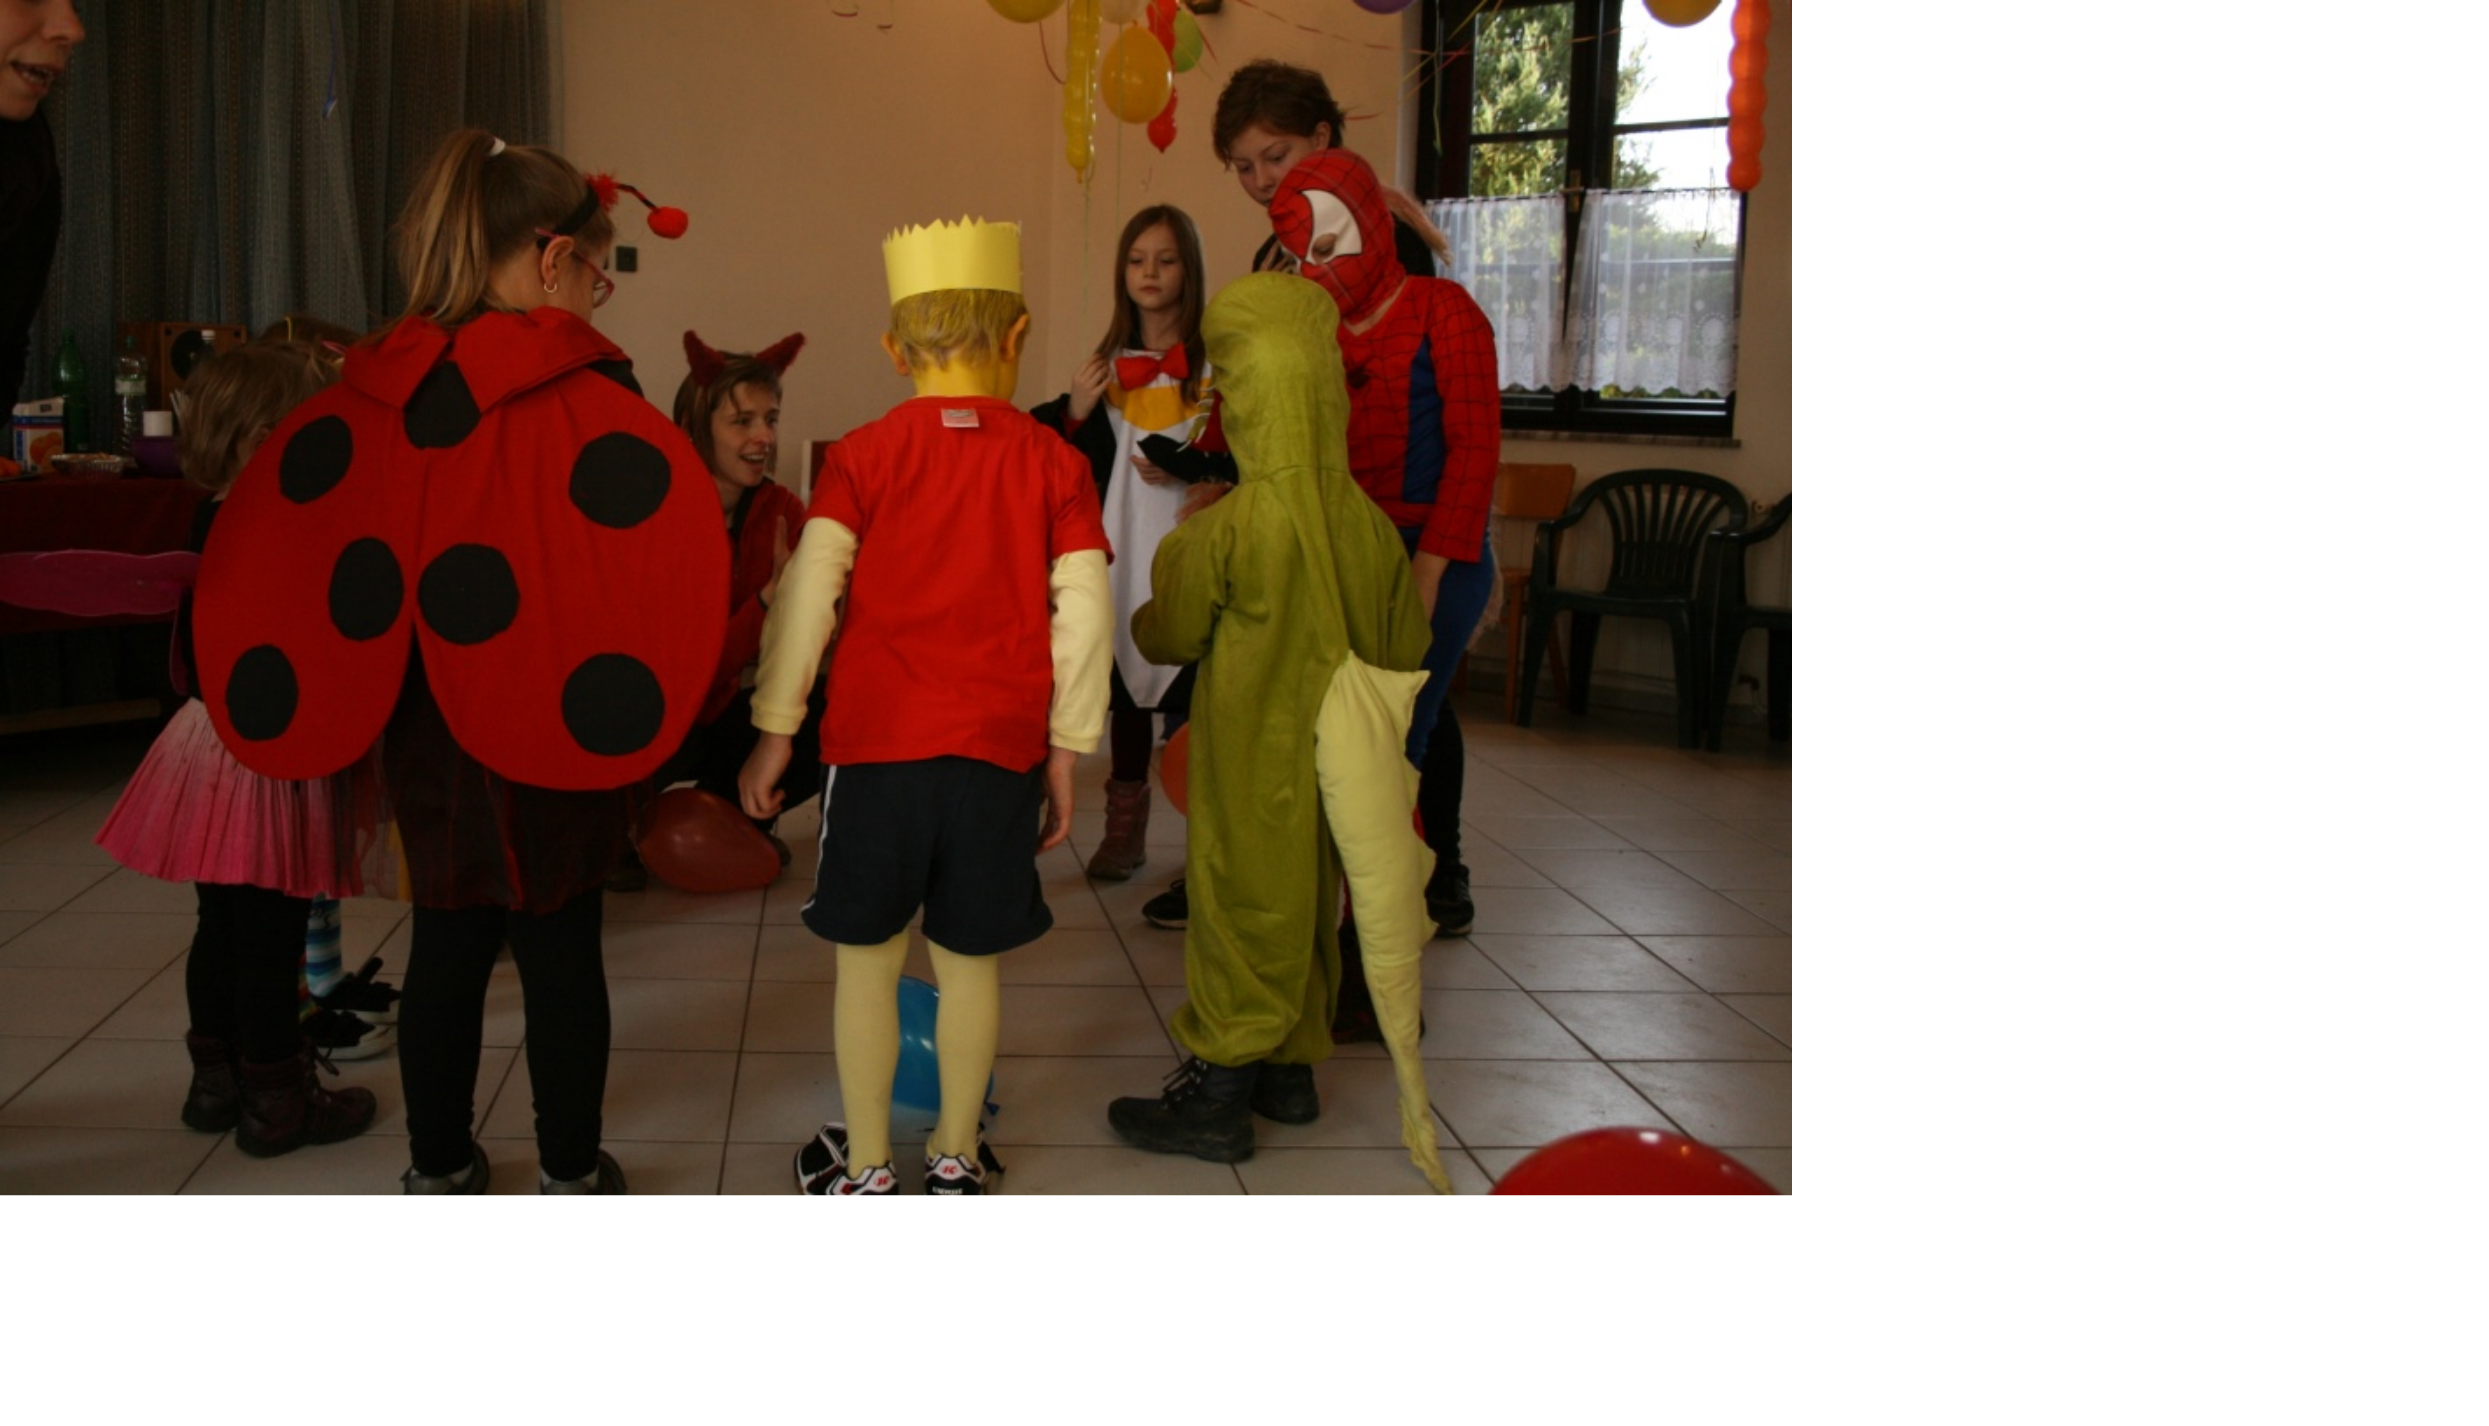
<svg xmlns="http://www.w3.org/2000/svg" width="2489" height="1426">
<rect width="100%" height="100%" fill="#fff"/>
<image x="0" y="0" width="1792" height="1196" href="media/1.png"/>
</svg>
